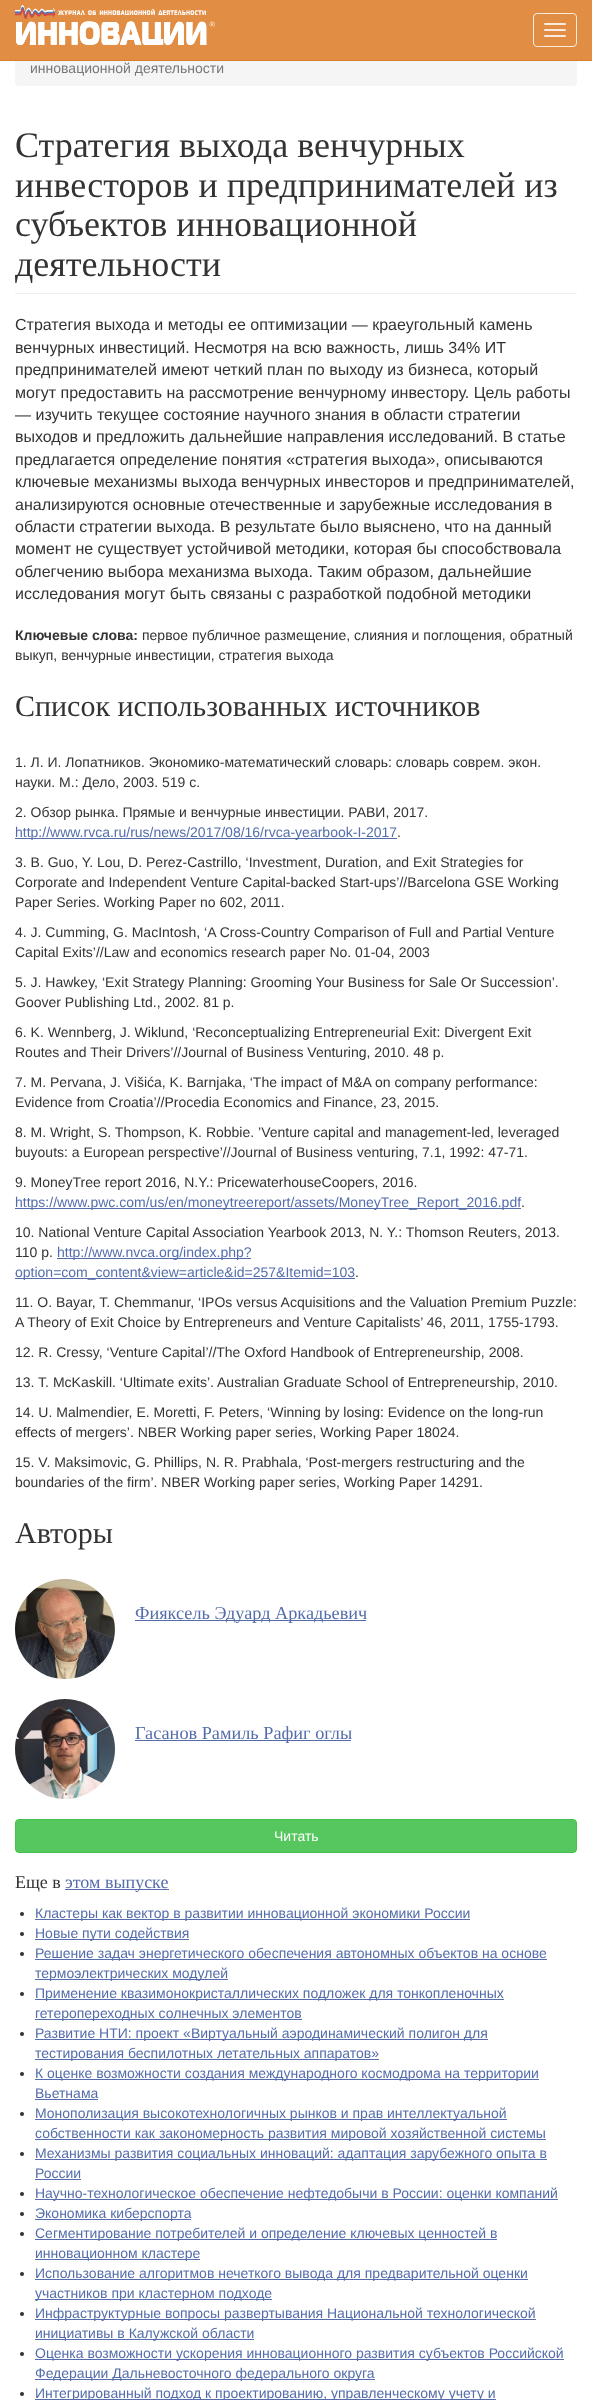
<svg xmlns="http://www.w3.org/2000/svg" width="592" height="2400">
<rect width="100%" height="100%" fill="#fff"/>
<rect x="15" y="10" width="562" height="76" rx="4" fill="#f5f5f5"/>
<rect width="592" height="60" fill="#e18d44"/>
<rect y="60" width="592" height="1" fill="#dc7c27"/>
<image x="15" y="5" width="200" height="40" href="media/1.png"/>
<rect x="533.5" y="13.5" width="43" height="33" rx="3.5" fill="none" stroke="#faebde"/>
<rect x="544" y="23" width="22" height="2" rx="1" fill="#faebde"/>
<rect x="544" y="29" width="22" height="2" rx="1" fill="#faebde"/>
<rect x="544" y="35" width="22" height="2" rx="1" fill="#faebde"/>
<text x="30" y="73" style="font-family:Liberation Sans;font-size:14px;fill:#777">инновационной деятельности</text>
<rect x="15" y="293" width="562" height="1" fill="#eee"/>
<text x="15" y="157" style="font-family:Liberation Serif;font-size:36px;fill:#333">Стратегия выхода венчурных</text>
<text x="15" y="197" style="font-family:Liberation Serif;font-size:36px;fill:#333">инвесторов и предпринимателей из</text>
<text x="15" y="236" style="font-family:Liberation Serif;font-size:36px;fill:#333">субъектов инновационной</text>
<text x="15" y="276" style="font-family:Liberation Serif;font-size:36px;fill:#333">деятельности</text>
<text x="15" y="330" style="font-family:Liberation Sans;font-size:16px;fill:#333">Стратегия выхода и методы ее оптимизации — краеугольный камень</text>
<text x="15" y="353" style="font-family:Liberation Sans;font-size:16px;fill:#333">венчурных инвестиций. Несмотря на всю важность, лишь 34% ИТ</text>
<text x="15" y="375" style="font-family:Liberation Sans;font-size:16px;fill:#333">предпринимателей имеют четкий план по выходу из бизнеса, который</text>
<text x="15" y="398" style="font-family:Liberation Sans;font-size:16px;fill:#333">могут предоставить на рассмотрение венчурному инвестору. Цель работы</text>
<text x="15" y="420" style="font-family:Liberation Sans;font-size:16px;fill:#333">— изучить текущее состояние научного знания в области стратегии</text>
<text x="15" y="442" style="font-family:Liberation Sans;font-size:16px;fill:#333">выходов и предложить дальнейшие направления исследований. В статье</text>
<text x="15" y="465" style="font-family:Liberation Sans;font-size:16px;fill:#333">предлагается определение понятия «стратегия выхода», описываются</text>
<text x="15" y="487" style="font-family:Liberation Sans;font-size:16px;fill:#333">ключевые механизмы выхода венчурных инвесторов и предпринимателей,</text>
<text x="15" y="510" style="font-family:Liberation Sans;font-size:16px;fill:#333">анализируются основные отечественные и зарубежные исследования в</text>
<text x="15" y="532" style="font-family:Liberation Sans;font-size:16px;fill:#333">области стратегии выхода. В результате было выяснено, что на данный</text>
<text x="15" y="554" style="font-family:Liberation Sans;font-size:16px;fill:#333">момент не существует устойчивой методики, которая бы способствовала</text>
<text x="15" y="577" style="font-family:Liberation Sans;font-size:16px;fill:#333">облегчению выбора механизма выхода. Таким образом, дальнейшие</text>
<text x="15" y="599" style="font-family:Liberation Sans;font-size:16px;fill:#333">исследования могут быть связаны с разработкой подобной методики</text>
<text x="15" y="640" style="font-family:Liberation Sans;font-size:14px;font-weight:bold;fill:#333">Ключевые слова:</text>
<text x="142" y="640" style="font-family:Liberation Sans;font-size:14px;fill:#333">первое публичное размещение, слияния и поглощения, обратный</text>
<text x="15" y="660" style="font-family:Liberation Sans;font-size:14px;fill:#333">выкуп, венчурные инвестиции, стратегия выхода</text>
<text x="15" y="716" style="font-family:Liberation Serif;font-size:30px;fill:#333">Список использованных источников</text>
<text x="15" y="767" style="font-family:Liberation Sans;font-size:14px;fill:#333">1. Л. И. Лопатников. Экономико-математический словарь: словарь соврем. экон.</text>
<text x="15" y="787" style="font-family:Liberation Sans;font-size:14px;fill:#333">науки. М.: Дело, 2003. 519 с.</text>
<text x="15" y="817" style="font-family:Liberation Sans;font-size:14px;fill:#333">2. Обзор рынка. Прямые и венчурные инвестиции. РАВИ, 2017.</text>
<rect x="15" y="838" width="382" height="1" fill="#546daa"/>
<text x="15" y="837" style="font-family:Liberation Sans;font-size:14px;fill:#546daa">http://www.rvca.ru/rus/news/2017/08/16/rvca-yearbook-I-2017</text>
<text x="397" y="837" style="font-family:Liberation Sans;font-size:14px;fill:#333">.</text>
<text x="15" y="867" style="font-family:Liberation Sans;font-size:14px;fill:#333">3. B. Guo, Y. Lou, D. Perez-Castrillo, ‘Investment, Duration, and Exit Strategies for</text>
<text x="15" y="887" style="font-family:Liberation Sans;font-size:14px;fill:#333">Corporate and Independent Venture Capital-backed Start-ups’//Barcelona GSE Working</text>
<text x="15" y="907" style="font-family:Liberation Sans;font-size:14px;fill:#333">Paper Series. Working Paper no 602, 2011.</text>
<text x="15" y="937" style="font-family:Liberation Sans;font-size:14px;fill:#333">4. J. Cumming, G. MacIntosh, ‘A Cross-Country Comparison of Full and Partial Venture</text>
<text x="15" y="957" style="font-family:Liberation Sans;font-size:14px;fill:#333">Capital Exits’//Law and economics research paper No. 01-04, 2003</text>
<text x="15" y="987" style="font-family:Liberation Sans;font-size:14px;fill:#333">5. J. Hawkey, ‘Exit Strategy Planning: Grooming Your Business for Sale Or Succession’.</text>
<text x="15" y="1007" style="font-family:Liberation Sans;font-size:14px;fill:#333">Goover Publishing Ltd., 2002. 81 p.</text>
<text x="15" y="1037" style="font-family:Liberation Sans;font-size:14px;fill:#333">6. K. Wennberg, J. Wiklund, ‘Reconceptualizing Entrepreneurial Exit: Divergent Exit</text>
<text x="15" y="1057" style="font-family:Liberation Sans;font-size:14px;fill:#333">Routes and Their Drivers’//Journal of Business Venturing, 2010. 48 p.</text>
<text x="15" y="1087" style="font-family:Liberation Sans;font-size:14px;fill:#333">7. M. Pervana, J. Višića, K. Barnjaka, ‘The impact of M&amp;A on company performance:</text>
<text x="15" y="1107" style="font-family:Liberation Sans;font-size:14px;fill:#333">Evidence from Croatia’//Procedia Economics and Finance, 23, 2015.</text>
<text x="15" y="1137" style="font-family:Liberation Sans;font-size:14px;fill:#333">8. M. Wright, S. Thompson, K. Robbie. ’Venture capital and management-led, leveraged</text>
<text x="15" y="1157" style="font-family:Liberation Sans;font-size:14px;fill:#333">buyouts: a European perspective’//Journal of Business venturing, 7.1, 1992: 47-71.</text>
<text x="15" y="1187" style="font-family:Liberation Sans;font-size:14px;fill:#333">9. MoneyTree report 2016, N.Y.: PricewaterhouseCoopers, 2016.</text>
<rect x="15" y="1208" width="506" height="1" fill="#546daa"/>
<text x="15" y="1207" style="font-family:Liberation Sans;font-size:14px;fill:#546daa">https://www.pwc.com/us/en/moneytreereport/assets/MoneyTree_Report_2016.pdf</text>
<text x="521" y="1207" style="font-family:Liberation Sans;font-size:14px;fill:#333">.</text>
<text x="15" y="1237" style="font-family:Liberation Sans;font-size:14px;fill:#333">10. National Venture Capital Association Yearbook 2013, N. Y.: Thomson Reuters, 2013.</text>
<text x="15" y="1257" style="font-family:Liberation Sans;font-size:14px;fill:#333">110 p.</text>
<rect x="57" y="1258" width="194" height="1" fill="#546daa"/>
<text x="57" y="1257" style="font-family:Liberation Sans;font-size:14px;fill:#546daa">http://www.nvca.org/index.php?</text>
<rect x="15" y="1278" width="340" height="1" fill="#546daa"/>
<text x="15" y="1277" style="font-family:Liberation Sans;font-size:14px;fill:#546daa">option=com_content&amp;view=article&amp;id=257&amp;Itemid=103</text>
<text x="355" y="1277" style="font-family:Liberation Sans;font-size:14px;fill:#333">.</text>
<text x="15" y="1307" style="font-family:Liberation Sans;font-size:14px;fill:#333">11. O. Bayar, T. Chemmanur, ‘IPOs versus Acquisitions and the Valuation Premium Puzzle:</text>
<text x="15" y="1327" style="font-family:Liberation Sans;font-size:14px;fill:#333">A Theory of Exit Choice by Entrepreneurs and Venture Capitalists’ 46, 2011, 1755-1793.</text>
<text x="15" y="1357" style="font-family:Liberation Sans;font-size:14px;fill:#333">12. R. Cressy, ‘Venture Capital’//The Oxford Handbook of Entrepreneurship, 2008.</text>
<text x="15" y="1387" style="font-family:Liberation Sans;font-size:14px;fill:#333">13. T. McKaskill. ‘Ultimate exits’. Australian Graduate School of Entrepreneurship, 2010.</text>
<text x="15" y="1417" style="font-family:Liberation Sans;font-size:14px;fill:#333">14. U. Malmendier, E. Moretti, F. Peters, ‘Winning by losing: Evidence on the long-run</text>
<text x="15" y="1437" style="font-family:Liberation Sans;font-size:14px;fill:#333">effects of mergers’. NBER Working paper series, Working Paper 18024.</text>
<text x="15" y="1467" style="font-family:Liberation Sans;font-size:14px;fill:#333">15. V. Maksimovic, G. Phillips, N. R. Prabhala, ‘Post-mergers restructuring and the</text>
<text x="15" y="1487" style="font-family:Liberation Sans;font-size:14px;fill:#333">boundaries of the firm’. NBER Working paper series, Working Paper 14291.</text>
<text x="15" y="1543" style="font-family:Liberation Serif;font-size:30px;fill:#333">Авторы</text>
<image x="15" y="1579" width="100" height="100" href="media/2.png"/>
<rect x="135" y="1620" width="231" height="1" fill="#546daa"/>
<text x="135" y="1619" style="font-family:Liberation Serif;font-size:18.25px;fill:#546daa">Фияксель Эдуард Аркадьевич</text>
<image x="15" y="1699" width="100" height="100" href="media/3.png"/>
<rect x="135" y="1740" width="216" height="1" fill="#546daa"/>
<text x="135" y="1739" style="font-family:Liberation Serif;font-size:18.25px;fill:#546daa">Гасанов Рамиль Рафиг оглы</text>
<rect x="15.5" y="1819.5" width="561" height="33" rx="3.5" fill="#56c75e" stroke="#43c14c"/>
<text x="274" y="1841" style="font-family:Liberation Sans;font-size:14px;fill:#fff">Читать</text>
<text x="15" y="1888" style="font-family:Liberation Serif;font-size:18px;fill:#333">Еще в</text>
<rect x="65" y="1889" width="104" height="1" fill="#546daa"/>
<text x="65" y="1888" style="font-family:Liberation Serif;font-size:18px;fill:#546daa">этом выпуске</text>
<circle cx="22" cy="1914" r="2" fill="#333"/>
<rect x="35" y="1919" width="435" height="1" fill="#546daa"/>
<text x="35" y="1918" style="font-family:Liberation Sans;font-size:14px;fill:#546daa">Кластеры как вектор в развитии инновационной экономики России</text>
<circle cx="22" cy="1934" r="2" fill="#333"/>
<rect x="35" y="1939" width="154" height="1" fill="#546daa"/>
<text x="35" y="1938" style="font-family:Liberation Sans;font-size:14px;fill:#546daa">Новые пути содействия</text>
<circle cx="22" cy="1954" r="2" fill="#333"/>
<rect x="35" y="1959" width="512" height="1" fill="#546daa"/>
<text x="35" y="1958" style="font-family:Liberation Sans;font-size:14px;fill:#546daa">Решение задач энергетического обеспечения автономных объектов на основе</text>
<rect x="35" y="1979" width="193" height="1" fill="#546daa"/>
<text x="35" y="1978" style="font-family:Liberation Sans;font-size:14px;fill:#546daa">термоэлектрических модулей</text>
<circle cx="22" cy="1994" r="2" fill="#333"/>
<rect x="35" y="1999" width="469" height="1" fill="#546daa"/>
<text x="35" y="1998" style="font-family:Liberation Sans;font-size:14px;fill:#546daa">Применение квазимонокристаллических подложек для тонкопленочных</text>
<rect x="35" y="2019" width="267" height="1" fill="#546daa"/>
<text x="35" y="2018" style="font-family:Liberation Sans;font-size:14px;fill:#546daa">гетеропереходных солнечных элементов</text>
<circle cx="22" cy="2034" r="2" fill="#333"/>
<rect x="35" y="2039" width="453" height="1" fill="#546daa"/>
<text x="35" y="2038" style="font-family:Liberation Sans;font-size:14px;fill:#546daa">Развитие НТИ: проект «Виртуальный аэродинамический полигон для</text>
<rect x="35" y="2059" width="344" height="1" fill="#546daa"/>
<text x="35" y="2058" style="font-family:Liberation Sans;font-size:14px;fill:#546daa">тестирования беспилотных летательных аппаратов»</text>
<circle cx="22" cy="2074" r="2" fill="#333"/>
<rect x="35" y="2079" width="504" height="1" fill="#546daa"/>
<text x="35" y="2078" style="font-family:Liberation Sans;font-size:14px;fill:#546daa">К оценке возможности создания международного космодрома на территории</text>
<text x="35" y="2098" style="font-family:Liberation Sans;font-size:14px;fill:#546daa">Вьетнама</text>
<rect x="35" y="2099" width="63" height="1" fill="#546daa"/>
<circle cx="22" cy="2114" r="2" fill="#333"/>
<rect x="35" y="2119" width="472" height="1" fill="#546daa"/>
<text x="35" y="2118" style="font-family:Liberation Sans;font-size:14px;fill:#546daa">Монополизация высокотехнологичных рынков и прав интеллектуальной</text>
<rect x="35" y="2139" width="511" height="1" fill="#546daa"/>
<text x="35" y="2138" style="font-family:Liberation Sans;font-size:14px;fill:#546daa">собственности как закономерность развития мировой хозяйственной системы</text>
<circle cx="22" cy="2154" r="2" fill="#333"/>
<rect x="35" y="2159" width="512" height="1" fill="#546daa"/>
<text x="35" y="2158" style="font-family:Liberation Sans;font-size:14px;fill:#546daa">Механизмы развития социальных инноваций: адаптация зарубежного опыта в</text>
<text x="35" y="2178" style="font-family:Liberation Sans;font-size:14px;fill:#546daa">России</text>
<rect x="35" y="2179" width="46" height="1" fill="#546daa"/>
<circle cx="22" cy="2194" r="2" fill="#333"/>
<rect x="35" y="2199" width="523" height="1" fill="#546daa"/>
<text x="35" y="2198" style="font-family:Liberation Sans;font-size:14px;fill:#546daa">Научно-технологическое обеспечение нефтедобычи в России: оценки компаний</text>
<circle cx="22" cy="2214" r="2" fill="#333"/>
<rect x="35" y="2219" width="156" height="1" fill="#546daa"/>
<text x="35" y="2218" style="font-family:Liberation Sans;font-size:14px;fill:#546daa">Экономика киберспорта</text>
<circle cx="22" cy="2234" r="2" fill="#333"/>
<rect x="35" y="2239" width="462" height="1" fill="#546daa"/>
<text x="35" y="2238" style="font-family:Liberation Sans;font-size:14px;fill:#546daa">Сегментирование потребителей и определение ключевых ценностей в</text>
<rect x="35" y="2259" width="165" height="1" fill="#546daa"/>
<text x="35" y="2258" style="font-family:Liberation Sans;font-size:14px;fill:#546daa">инновационном кластере</text>
<circle cx="22" cy="2274" r="2" fill="#333"/>
<rect x="35" y="2279" width="493" height="1" fill="#546daa"/>
<text x="35" y="2278" style="font-family:Liberation Sans;font-size:14px;fill:#546daa">Использование алгоритмов нечеткого вывода для предварительной оценки</text>
<rect x="35" y="2299" width="237" height="1" fill="#546daa"/>
<text x="35" y="2298" style="font-family:Liberation Sans;font-size:14px;fill:#546daa">участников при кластерном подходе</text>
<circle cx="22" cy="2314" r="2" fill="#333"/>
<rect x="35" y="2319" width="501" height="1" fill="#546daa"/>
<text x="35" y="2318" style="font-family:Liberation Sans;font-size:14px;fill:#546daa">Инфраструктурные вопросы развертывания Национальной технологической</text>
<rect x="35" y="2339" width="219" height="1" fill="#546daa"/>
<text x="35" y="2338" style="font-family:Liberation Sans;font-size:14px;fill:#546daa">инициативы в Калужской области</text>
<circle cx="22" cy="2354" r="2" fill="#333"/>
<rect x="35" y="2359" width="529" height="1" fill="#546daa"/>
<text x="35" y="2358" style="font-family:Liberation Sans;font-size:14px;fill:#546daa">Оценка возможности ускорения инновационного развития субъектов Российской</text>
<rect x="35" y="2379" width="340" height="1" fill="#546daa"/>
<text x="35" y="2378" style="font-family:Liberation Sans;font-size:14px;fill:#546daa">Федерации Дальневосточного федерального округа</text>
<circle cx="22" cy="2394" r="2" fill="#333"/>
<rect x="35" y="2399" width="461" height="1" fill="#546daa"/>
<text x="35" y="2398" style="font-family:Liberation Sans;font-size:14px;fill:#546daa">Интегрированный подход к проектированию, управленческому учету и</text>
</svg>
